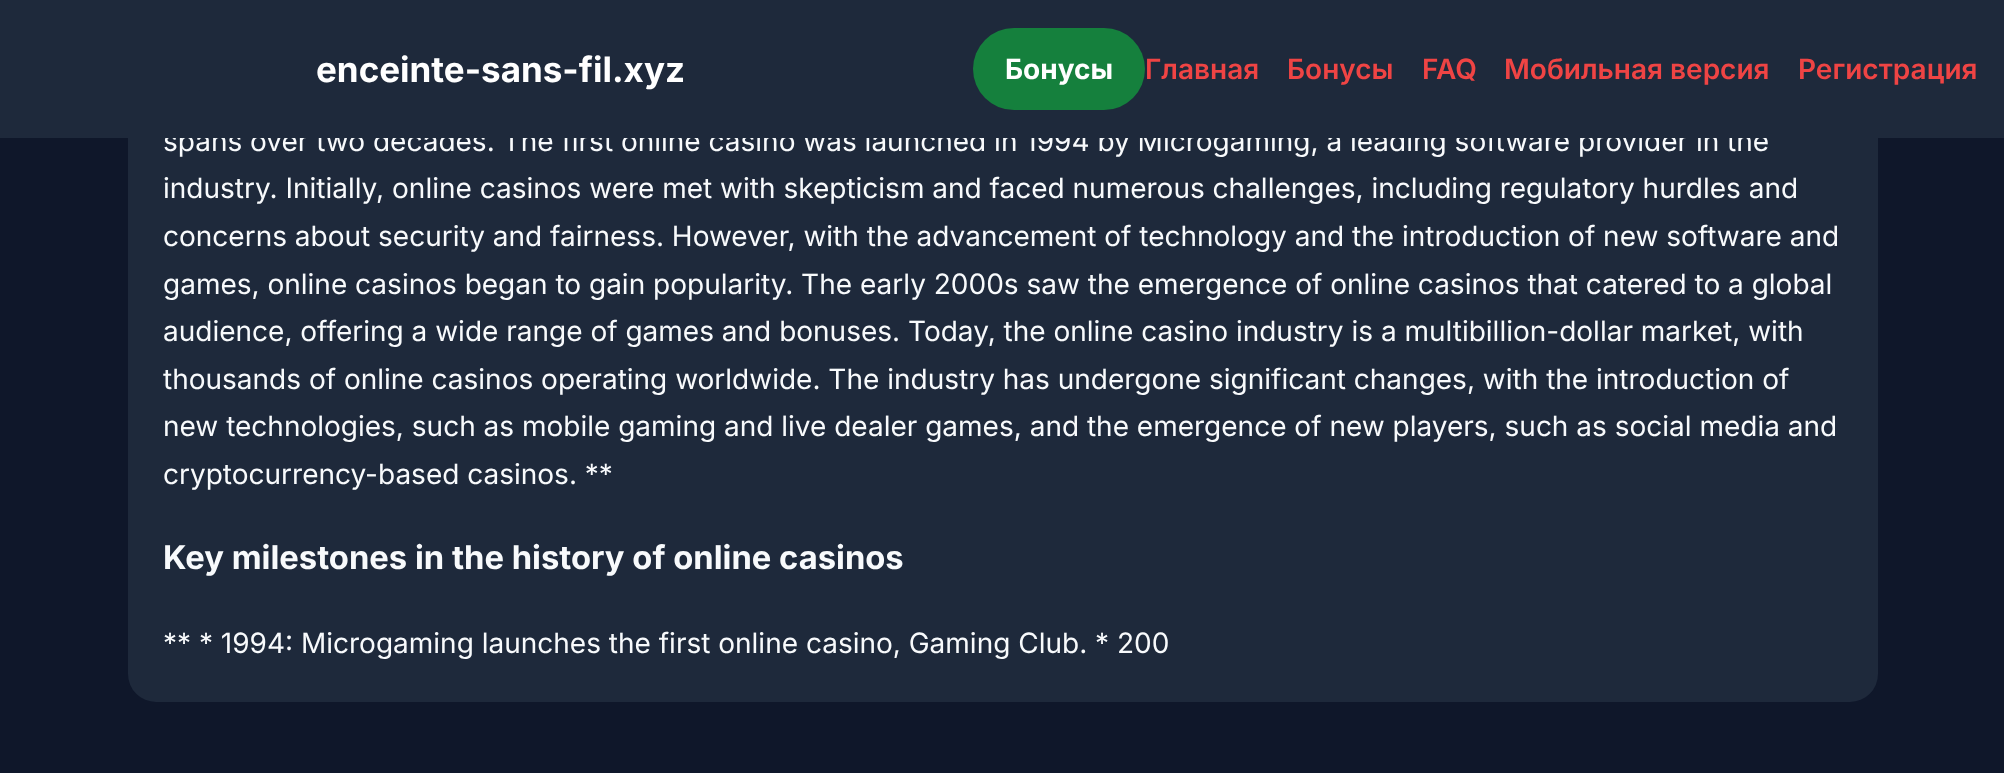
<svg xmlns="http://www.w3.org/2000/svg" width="2004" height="773">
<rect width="100%" height="100%" fill="#0f172a"/>
<rect x="128" y="-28" width="1750" height="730" rx="28" fill="#1e293b"/>
<text x="163" y="151" style="font-family:Inter;font-size:28px;fill:#f8fafc">spans over two decades. The first online casino was launched in 1994 by Microgaming, a leading software provider in the</text>
<rect width="2004" height="138" fill="#1e293b"/>
<text x="316" y="82" style="font-family:Inter;font-size:35px;font-weight:bold;fill:#fff">enceinte-sans-fil.xyz</text>
<rect x="973" y="28" width="172" height="82" rx="41" fill="#15803d"/>
<text x="1005" y="79" style="font-family:Inter;font-size:28px;font-weight:bold;fill:#fff">Бонусы</text>
<text x="1145" y="79" style="font-family:Inter;font-size:28px;font-weight:600;fill:#ef4444">Главная</text>
<text x="1287" y="79" style="font-family:Inter;font-size:28px;font-weight:600;fill:#ef4444">Бонусы</text>
<text x="1422" y="79" style="font-family:Inter;font-size:28px;font-weight:600;fill:#ef4444">FAQ</text>
<text x="1504" y="79" style="font-family:Inter;font-size:28px;font-weight:600;fill:#ef4444">Мобильная версия</text>
<text x="1798" y="79" style="font-family:Inter;font-size:28px;font-weight:600;fill:#ef4444">Регистрация</text>
<text x="163" y="198" style="font-family:Inter;font-size:28px;fill:#f8fafc">industry. Initially, online casinos were met with skepticism and faced numerous challenges, including regulatory hurdles and</text>
<text x="163" y="246" style="font-family:Inter;font-size:28px;fill:#f8fafc">concerns about security and fairness. However, with the advancement of technology and the introduction of new software and</text>
<text x="163" y="294" style="font-family:Inter;font-size:28px;fill:#f8fafc">games, online casinos began to gain popularity. The early 2000s saw the emergence of online casinos that catered to a global</text>
<text x="163" y="341" style="font-family:Inter;font-size:28px;fill:#f8fafc">audience, offering a wide range of games and bonuses. Today, the online casino industry is a multibillion-dollar market, with</text>
<text x="163" y="389" style="font-family:Inter;font-size:28px;fill:#f8fafc">thousands of online casinos operating worldwide. The industry has undergone significant changes, with the introduction of</text>
<text x="163" y="436" style="font-family:Inter;font-size:28px;fill:#f8fafc">new technologies, such as mobile gaming and live dealer games, and the emergence of new players, such as social media and</text>
<text x="163" y="484" style="font-family:Inter;font-size:28px;fill:#f8fafc">cryptocurrency-based casinos. **</text>
<text x="163" y="569" style="font-family:Inter;font-size:32.75px;font-weight:bold;fill:#f8fafc">Key milestones in the history of online casinos</text>
<text x="163" y="653" style="font-family:Inter;font-size:28px;fill:#f8fafc">** * 1994: Microgaming launches the first online casino, Gaming Club. * 200</text>
</svg>
